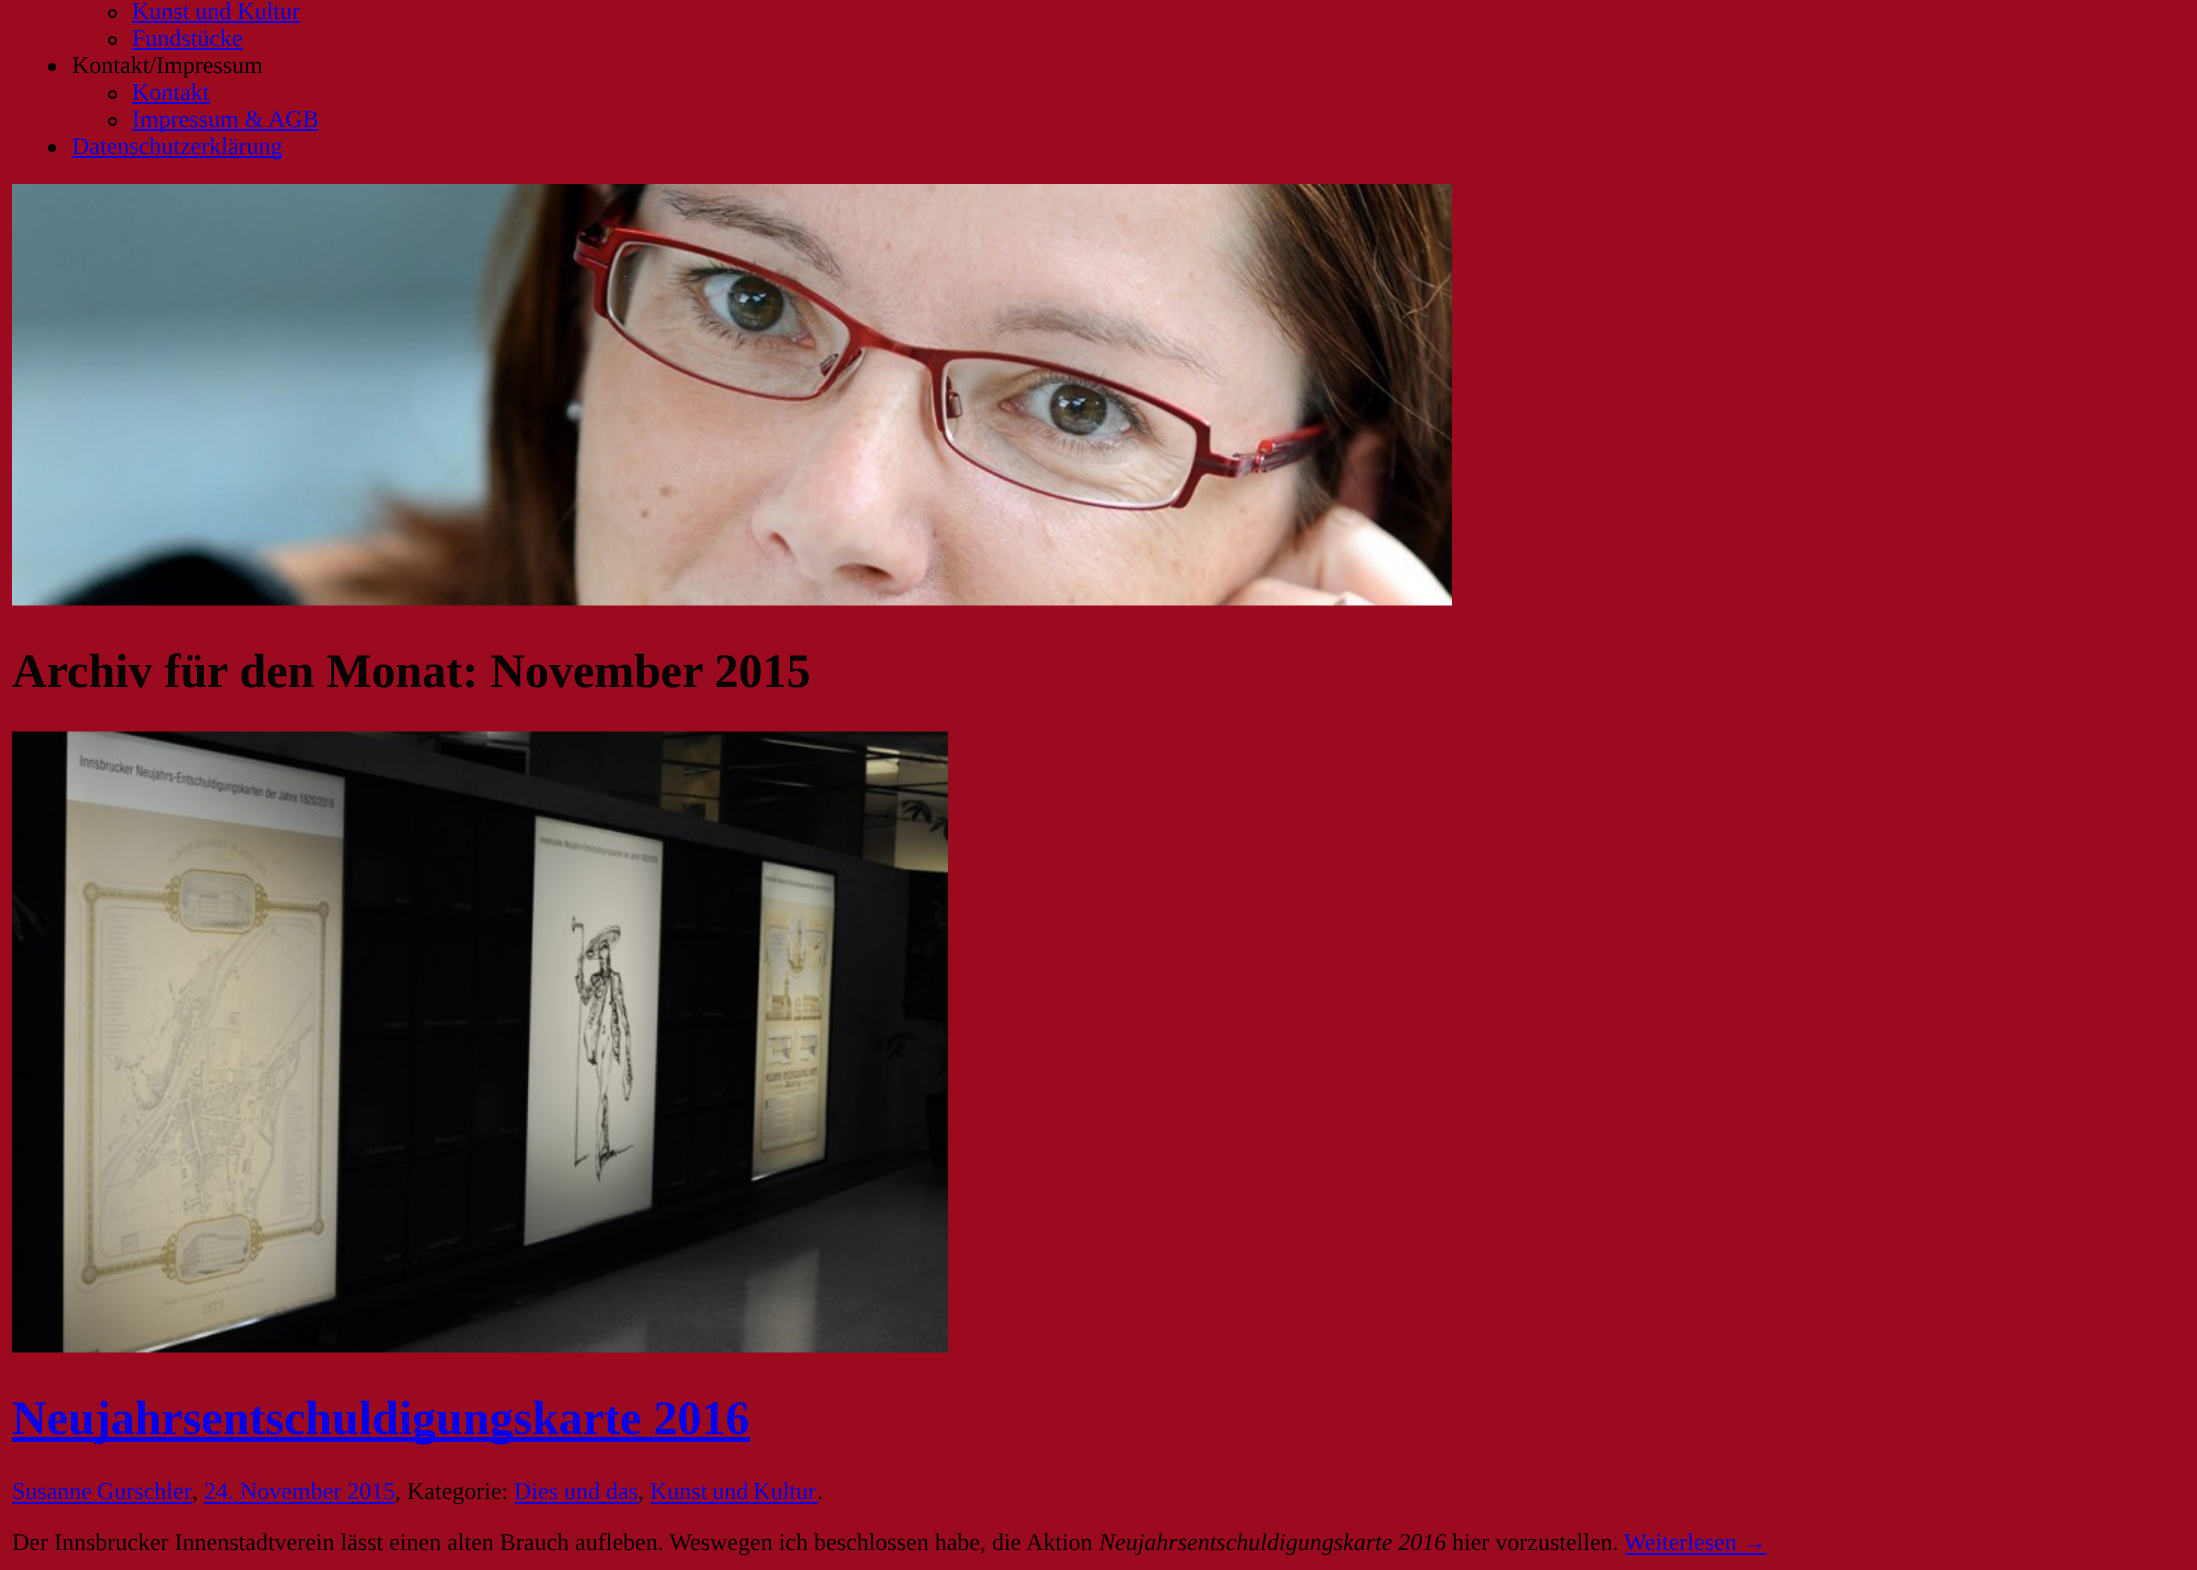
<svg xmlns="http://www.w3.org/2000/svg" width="2197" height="1570">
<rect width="100%" height="100%" fill="#9b0a1e"/>
<circle cx="112.5" cy="13.5" r="3.5" fill="none" stroke="#000" stroke-width="2"/>
<text x="132" y="19" style="font-family:Liberation Serif;font-size:24px;fill:#00e">Kunst und Kultur</text>
<rect x="132" y="21" width="168" height="2" fill="#00e"/>
<circle cx="112.5" cy="40.5" r="3.5" fill="none" stroke="#000" stroke-width="2"/>
<text x="132" y="46" style="font-family:Liberation Serif;font-size:24px;fill:#00e">Fundstücke</text>
<rect x="132" y="48" width="111" height="2" fill="#00e"/>
<circle cx="52" cy="67" r="4" fill="#000"/>
<text x="72" y="73" style="font-family:Liberation Serif;font-size:24px;fill:#000">Kontakt/Impressum</text>
<circle cx="112.5" cy="94.5" r="3.5" fill="none" stroke="#000" stroke-width="2"/>
<text x="132" y="100" style="font-family:Liberation Serif;font-size:24px;fill:#00e">Kontakt</text>
<rect x="132" y="102" width="78" height="2" fill="#00e"/>
<circle cx="112.5" cy="121.5" r="3.5" fill="none" stroke="#000" stroke-width="2"/>
<rect x="132" y="129" width="186" height="2" fill="#00e"/>
<text x="132" y="127" style="font-family:Liberation Serif;font-size:24px;fill:#00e">Impressum &amp; AGB</text>
<circle cx="52" cy="148" r="4" fill="#000"/>
<rect x="72" y="156" width="210" height="2" fill="#00e"/>
<text x="72" y="154" style="font-family:Liberation Serif;font-size:24px;fill:#00e">Datenschutzerklärung</text>
<image x="12" y="184" width="1440" height="422" href="media/1.png"/>
<text x="12" y="687" style="font-family:Liberation Serif;font-size:48px;font-weight:bold;fill:#000">Archiv für den Monat: November 2015</text>
<image x="12" y="731" width="936" height="622" href="media/2.png"/>
<rect x="12" y="1437" width="738" height="5" fill="#00e"/>
<text x="12" y="1434" style="font-family:Liberation Serif;font-size:48px;font-weight:bold;fill:#00e">Neujahrsentschuldigungskarte 2016</text>
<text x="12" y="1499" word-spacing="-1" style="font-family:Liberation Serif;font-size:24px;fill:#00e">Susanne Gurschler</text>
<rect x="12" y="1502" width="180" height="2" fill="#00e"/>
<text x="192" y="1499" style="font-family:Liberation Serif;font-size:24px;fill:#000">,</text>
<text x="204" y="1499" style="font-family:Liberation Serif;font-size:24px;fill:#00e">24. November 2015</text>
<rect x="204" y="1502" width="191" height="2" fill="#00e"/>
<text x="395" y="1499" style="font-family:Liberation Serif;font-size:24px;fill:#000">, Kategorie:</text>
<text x="514" y="1499" style="font-family:Liberation Serif;font-size:24px;fill:#00e">Dies und das</text>
<rect x="515" y="1502" width="124" height="2" fill="#00e"/>
<text x="638" y="1499" style="font-family:Liberation Serif;font-size:24px;fill:#000">,</text>
<text x="650" y="1499" word-spacing="-1" style="font-family:Liberation Serif;font-size:24px;fill:#00e">Kunst und Kultur</text>
<rect x="651" y="1502" width="167" height="2" fill="#00e"/>
<text x="817" y="1499" style="font-family:Liberation Serif;font-size:24px;fill:#000">.</text>
<text x="12" y="1550" style="font-family:Liberation Serif;font-size:24px;fill:#000">Der Innsbrucker Innenstadtverein lässt einen alten Brauch aufleben. Weswegen ich beschlossen habe, die Aktion</text>
<text x="1099" y="1550" style="font-family:Liberation Serif;font-size:24px;font-style:italic;fill:#000">Neujahrsentschuldigungskarte 2016</text>
<text x="1452" y="1550" style="font-family:Liberation Serif;font-size:24px;fill:#000">hier vorzustellen.</text>
<text x="1624" y="1550" style="font-family:Liberation Serif;font-size:24px;fill:#00e">Weiterlesen →</text>
<rect x="1625" y="1553" width="142" height="2" fill="#00e"/>
</svg>
